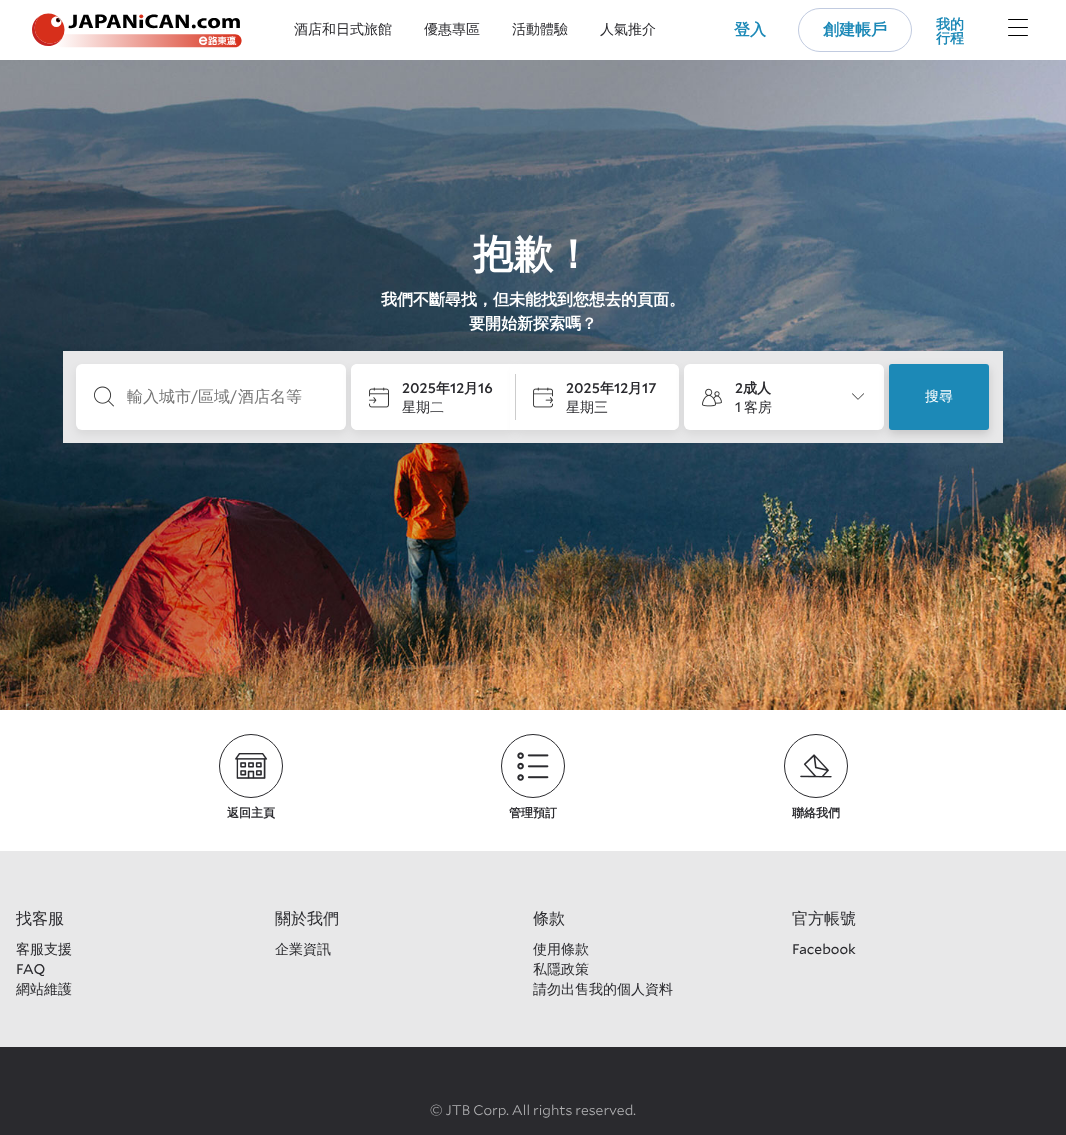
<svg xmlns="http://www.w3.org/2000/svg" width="1066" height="1135">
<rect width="100%" height="100%" fill="#fff"/>
<image x="32" y="13" width="210" height="35" href="media/1.png"/>
<text x="294" y="34" style="font-family:WenQuanYi Zen Hei;font-size:14px;font-weight:500;fill:#2a2a2e">酒店和日式旅館</text>
<text x="424" y="34" style="font-family:WenQuanYi Zen Hei;font-size:14px;font-weight:500;fill:#2a2a2e">優惠專區</text>
<text x="512" y="34" style="font-family:WenQuanYi Zen Hei;font-size:14px;font-weight:500;fill:#2a2a2e">活動體驗</text>
<text x="600" y="34" style="font-family:WenQuanYi Zen Hei;font-size:14px;font-weight:500;fill:#2a2a2e">人氣推介</text>
<text x="734" y="35" style="font-family:WenQuanYi Zen Hei;font-size:16px;font-weight:bold;fill:#1c89b7">登入</text>
<rect x="798.5" y="8.5" width="113" height="43" rx="21.5" fill="none" stroke="#c1cbe0"/>
<text x="823" y="35" style="font-family:WenQuanYi Zen Hei;font-size:16px;font-weight:bold;fill:#1c89b7">創建帳戶</text>
<text x="936" y="29" style="font-family:WenQuanYi Zen Hei;font-size:14px;font-weight:bold;fill:#1c89b7">我的</text>
<text x="936" y="43" style="font-family:WenQuanYi Zen Hei;font-size:14px;font-weight:bold;fill:#1c89b7">行程</text>
<image x="1008" y="19" width="20" height="17" href="media/2.png"/>
<image x="0" y="60" width="1066" height="650" href="media/3.png"/>
<text x="473" y="268" style="font-family:WenQuanYi Zen Hei;font-size:40px;font-weight:bold;fill:#fff">抱歉！</text>
<text x="381" y="305" style="font-family:WenQuanYi Zen Hei;font-size:16px;font-weight:bold;fill:#fff">我們不斷尋找，但未能找到您想去的頁面。</text>
<text x="469" y="329" style="font-family:WenQuanYi Zen Hei;font-size:16px;font-weight:bold;fill:#fff">要開始新探索嗎？</text>
<rect x="63" y="351" width="940" height="92" fill="#e8e8e9"/>
<rect x="76" y="368" width="270" height="66" rx="6" fill="#00000012" filter="blur(5px)"/>
<rect x="76" y="364" width="270" height="66" rx="6" fill="#fff"/>
<image x="94" y="386" width="20" height="21" href="media/4.png"/>
<text x="127" y="402" style="font-family:WenQuanYi Zen Hei;font-size:16px;font-weight:500;fill:#757575">輸入城市</text>
<text x="191" y="402" style="font-family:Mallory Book;font-size:16px;fill:#757575">/</text>
<text x="198" y="402" style="font-family:WenQuanYi Zen Hei;font-size:16px;font-weight:500;fill:#757575">區域</text>
<text x="230" y="402" style="font-family:Mallory Book;font-size:16px;fill:#757575">/</text>
<text x="238" y="402" style="font-family:WenQuanYi Zen Hei;font-size:16px;font-weight:500;fill:#757575">酒店名等</text>
<rect x="351" y="368" width="164" height="66" rx="6" fill="#00000012" filter="blur(5px)"/>
<path d="M357 364h158v66h-158c-3.5 0-6-2.5-6-6v-54c0-3.5 2.5-6 6-6z" fill="#fff"/>
<image x="369" y="387" width="20" height="21" href="media/5.png"/>
<text x="402" y="393" style="font-family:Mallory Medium;font-size:14px;font-weight:500;fill:#2a2a2e">2025</text>
<text x="436" y="393" style="font-family:WenQuanYi Zen Hei;font-size:14px;font-weight:bold;fill:#2a2a2e">年</text>
<text x="450" y="393" style="font-family:Mallory Medium;font-size:14px;font-weight:500;fill:#2a2a2e">12</text>
<text x="464" y="393" style="font-family:WenQuanYi Zen Hei;font-size:14px;font-weight:bold;fill:#2a2a2e">月</text>
<text x="478" y="393" style="font-family:Mallory Medium;font-size:14px;font-weight:500;fill:#2a2a2e">16</text>
<text x="402" y="412" style="font-family:WenQuanYi Zen Hei;font-size:14px;font-weight:500;fill:#2a2a2e">星期二</text>
<rect x="515" y="368" width="164" height="66" rx="6" fill="#00000012" filter="blur(5px)"/>
<path d="M515 364h158c3.5 0 6 2.5 6 6v54c0 3.5-2.5 6-6 6h-158z" fill="#fff"/>
<rect x="510" y="364" width="5" height="66" fill="#fff"/>
<rect x="515" y="374" width="1" height="46" fill="#ccc"/>
<image x="533" y="387" width="20" height="21" href="media/6.png"/>
<text x="566" y="393" style="font-family:Mallory Medium;font-size:14px;font-weight:500;fill:#2a2a2e">2025</text>
<text x="600" y="393" style="font-family:WenQuanYi Zen Hei;font-size:14px;font-weight:bold;fill:#2a2a2e">年</text>
<text x="614" y="393" style="font-family:Mallory Medium;font-size:14px;font-weight:500;fill:#2a2a2e">12</text>
<text x="628" y="393" style="font-family:WenQuanYi Zen Hei;font-size:14px;font-weight:bold;fill:#2a2a2e">月</text>
<text x="642" y="393" style="font-family:Mallory Medium;font-size:14px;font-weight:500;fill:#2a2a2e">17</text>
<text x="566" y="412" style="font-family:WenQuanYi Zen Hei;font-size:14px;font-weight:500;fill:#2a2a2e">星期三</text>
<rect x="684" y="368" width="200" height="66" rx="6" fill="#00000012" filter="blur(5px)"/>
<rect x="684" y="364" width="200" height="66" rx="6" fill="#fff"/>
<image x="702" y="388" width="20" height="19" href="media/7.png"/>
<text x="735" y="393" style="font-family:Mallory Medium;font-size:14px;font-weight:500;fill:#2a2a2e">2</text>
<text x="743" y="393" style="font-family:WenQuanYi Zen Hei;font-size:14px;font-weight:bold;fill:#2a2a2e">成人</text>
<image x="852" y="393" width="12" height="7" href="media/8.png"/>
<text x="735" y="412" style="font-family:Mallory Book;font-size:14px;fill:#2a2a2e">1</text>
<text x="744" y="412" style="font-family:WenQuanYi Zen Hei;font-size:14px;font-weight:500;fill:#2a2a2e">客房</text>
<rect x="889" y="368" width="100" height="66" rx="3" fill="#00000026" filter="blur(5px)"/>
<rect x="889" y="364" width="100" height="66" rx="3" fill="#1c89b7"/>
<text x="925" y="401" style="font-family:WenQuanYi Zen Hei;font-size:14px;font-weight:500;fill:#fff">搜尋</text>
<circle cx="251" cy="766" r="31.5" fill="none" stroke="#2a2a2e"/>
<image x="235" y="753" width="33" height="26" href="media/9.png"/>
<text x="227" y="817" style="font-family:WenQuanYi Zen Hei;font-size:12px;font-weight:bold;fill:#2a2a2e">返回主頁</text>
<circle cx="533" cy="766" r="31.5" fill="none" stroke="#2a2a2e"/>
<image x="517" y="752" width="32" height="29" href="media/10.png"/>
<text x="509" y="817" style="font-family:WenQuanYi Zen Hei;font-size:12px;font-weight:bold;fill:#2a2a2e">管理預訂</text>
<circle cx="816" cy="766" r="31.5" fill="none" stroke="#2a2a2e"/>
<image x="800" y="754" width="32" height="24" href="media/11.png"/>
<text x="792" y="817" style="font-family:WenQuanYi Zen Hei;font-size:12px;font-weight:bold;fill:#2a2a2e">聯絡我們</text>
<rect y="851" width="1066" height="196" fill="#e8e8e9"/>
<text x="16" y="924" style="font-family:WenQuanYi Zen Hei;font-size:16px;font-weight:500;fill:#2a2a2e">找客服</text>
<text x="16" y="954" style="font-family:WenQuanYi Zen Hei;font-size:14px;font-weight:500;fill:#2a2a2e">客服支援</text>
<text x="16" y="974" style="font-family:Mallory Book;font-size:14px;fill:#2a2a2e">FAQ</text>
<text x="16" y="994" style="font-family:WenQuanYi Zen Hei;font-size:14px;font-weight:500;fill:#2a2a2e">網站維護</text>
<text x="275" y="924" style="font-family:WenQuanYi Zen Hei;font-size:16px;font-weight:500;fill:#2a2a2e">關於我們</text>
<text x="275" y="954" style="font-family:WenQuanYi Zen Hei;font-size:14px;font-weight:500;fill:#2a2a2e">企業資訊</text>
<text x="533" y="924" style="font-family:WenQuanYi Zen Hei;font-size:16px;font-weight:500;fill:#2a2a2e">條款</text>
<text x="533" y="954" style="font-family:WenQuanYi Zen Hei;font-size:14px;font-weight:500;fill:#2a2a2e">使用條款</text>
<text x="533" y="974" style="font-family:WenQuanYi Zen Hei;font-size:14px;font-weight:500;fill:#2a2a2e">私隱政策</text>
<text x="533" y="994" style="font-family:WenQuanYi Zen Hei;font-size:14px;font-weight:500;fill:#2a2a2e">請勿出售我的個人資料</text>
<text x="792" y="924" style="font-family:WenQuanYi Zen Hei;font-size:16px;font-weight:500;fill:#2a2a2e">官方帳號</text>
<text x="792" y="954" style="font-family:Mallory Book;font-size:14px;fill:#2a2a2e">Facebook</text>
<rect y="1047" width="1066" height="88" fill="#2a2a2e"/>
<text x="430" y="1115" style="font-family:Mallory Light;font-size:14px;font-weight:300;fill:#b1b1b3">© JTB Corp. All rights reserved.</text>
</svg>
